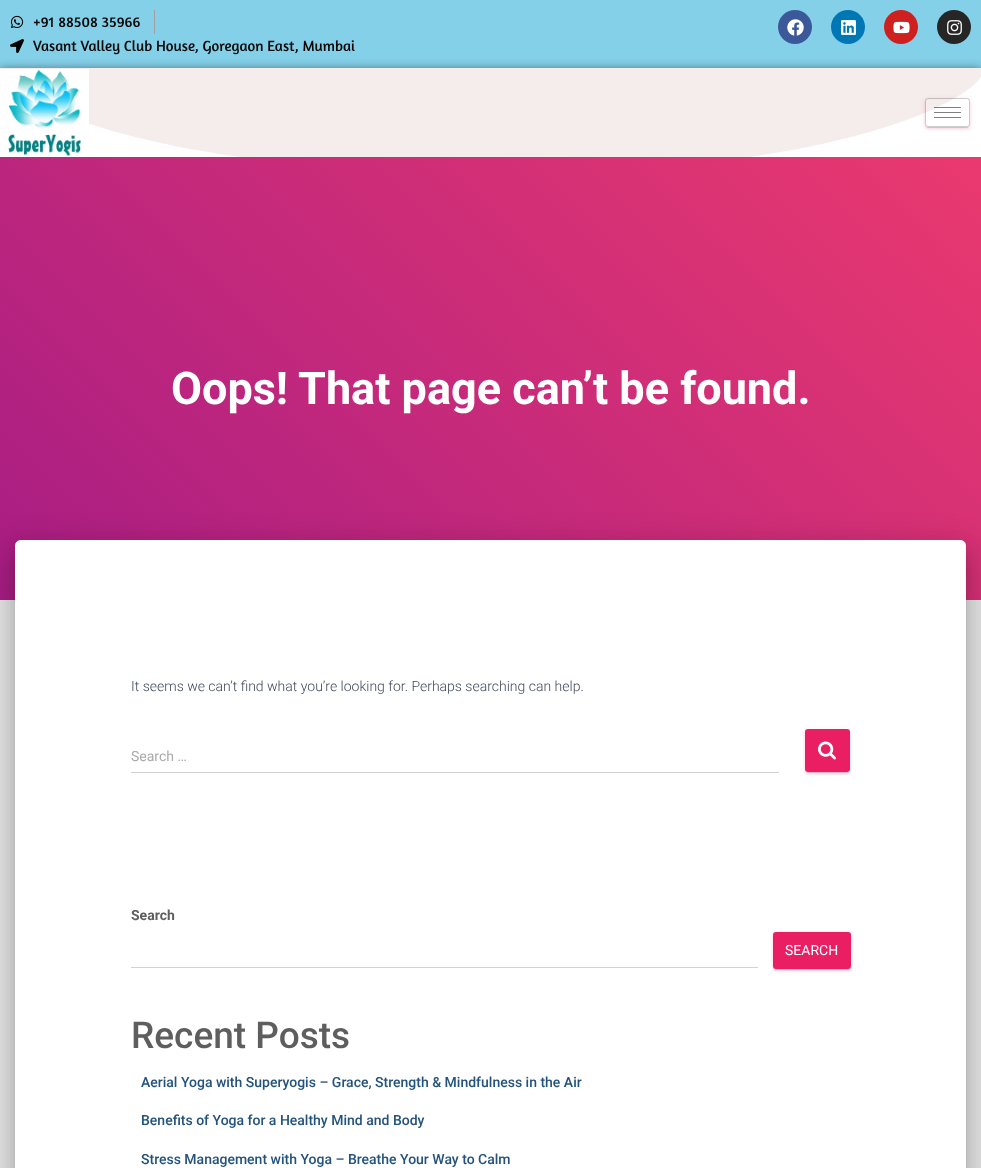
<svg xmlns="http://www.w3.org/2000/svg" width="981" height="1168">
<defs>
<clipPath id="clip1"><path d="M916 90h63v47h-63zm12 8h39c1.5 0 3 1.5 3 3v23c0 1.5-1.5 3-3 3h-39c-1.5 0-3-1.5-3-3v-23c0-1.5 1.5-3 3-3z" clip-rule="evenodd"/></clipPath>
<clipPath id="clip2"><rect x="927" y="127" width="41" height="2"/></clipPath>
<clipPath id="clip3"><path d="M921 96h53v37h-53zm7 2h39c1.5 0 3 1.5 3 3v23c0 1.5-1.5 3-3 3h-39c-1.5 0-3-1.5-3-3v-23c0-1.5 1.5-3 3-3z" clip-rule="evenodd"/></clipPath>
<linearGradient id="g1" gradientUnits="userSpaceOnUse" x1="135" y1="735" x2="847" y2="23"><stop offset="0" stop-color="#a81d84"/><stop offset="1" stop-color="#ea396f"/></linearGradient>
</defs>
<rect width="100%" height="100%" fill="#e5e5e5"/>
<rect width="981" height="68" fill="#84d0e9"/>
<image x="10" y="15" width="14" height="13" href="media/1.png"/>
<text x="33" y="27" style="font-family:Amaranth;font-size:15px;fill:#080808">+91 88508 35966</text>
<rect x="154" y="10" width="1" height="24" fill="#a49e9e"/>
<image x="10" y="39" width="14" height="14" href="media/2.png"/>
<text x="33" y="51" style="font-family:Amaranth;font-size:15px;fill:#080808">Vasant Valley Club House, Goregaon East, Mumbai</text>
<circle cx="795" cy="27" r="17" fill="#3b5998"/>
<image x="787" y="19" width="17" height="17" href="media/3.png"/>
<circle cx="848" cy="27" r="17" fill="#0077b5"/>
<image x="841" y="20" width="15" height="15" href="media/4.png"/>
<circle cx="901" cy="27" r="17" fill="#cd201f"/>
<image x="893" y="21" width="17" height="13" href="media/5.png"/>
<circle cx="954" cy="27" r="17" fill="#262626"/>
<image x="947" y="20" width="15" height="15" href="media/6.png"/>
<rect y="69" width="981" height="88" fill="#00000080" filter="blur(5px)"/>
<rect x="89" y="76" width="892" height="81" fill="#fff"/>
<path d="M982 73v-5h-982v5c1 19 124 99 491 100c367 1 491-81 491-100z" fill="#f5ecec"/>
<image x="0" y="69" width="89" height="88" href="media/7.png"/>
<g clip-path="url(#clip1)">
<rect x="925" y="99" width="45" height="29" rx="3" fill="#e91e631f" filter="blur(2.5px)"/>
</g>
<g clip-path="url(#clip2)">
<rect x="927" y="103" width="41" height="25" rx="1" fill="#e91e6333" filter="blur(0.5px)"/>
</g>
<g clip-path="url(#clip3)">
<rect x="925" y="100" width="45" height="29" rx="3" fill="#e91e6324" filter="blur(1px)"/>
</g>
<rect x="925.5" y="98.5" width="44" height="28" rx="2.5" fill="none" stroke="#00000033"/>
<rect x="934" y="107" width="27" height="1" fill="#00000080"/>
<rect x="934" y="112" width="27" height="1" fill="#808080"/>
<rect x="934" y="117" width="27" height="1" fill="#808080"/>
<rect y="157" width="981" height="443" fill="url(#g1)"/>
<text x="171" y="404" style="font-family:Roboto;font-size:45px;font-weight:bold;fill:#fff">Oops! That page can’t be found.</text>
<rect x="20" y="553" width="941" height="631" rx="1" fill="#00000033" filter="blur(5px)"/>
<rect x="10" y="541" width="961" height="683" rx="11" fill="#0000001f" filter="blur(15px)"/>
<rect x="13" y="554" width="955" height="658" rx="8" fill="#00000024" filter="blur(12px)"/>
<path d="M21 540h939c3.5 0 6 2.5 6 6v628h-951v-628c0-3.5 2.5-6 6-6z" fill="#fff"/>
<text x="131" y="691" style="font-family:Roboto;font-size:14px;font-weight:300;fill:#3c4858">It seems we can’t find what you’re looking for. Perhaps searching can help.</text>
<text x="131" y="761" style="font-family:Roboto;font-size:14px;fill:#aaa">Search …</text>
<rect x="131" y="772" width="648" height="1" fill="#d2d2d2"/>
<rect x="805" y="730" width="45" height="43" rx="3" fill="#e91e631f" filter="blur(2.5px)"/>
<rect x="807" y="734" width="41" height="39" rx="1" fill="#e91e6333" filter="blur(0.5px)"/>
<rect x="805" y="731" width="45" height="43" rx="3" fill="#e91e6324" filter="blur(1px)"/>
<rect x="805" y="729" width="45" height="43" rx="3" fill="#e91e63"/>
<image x="818" y="741" width="18" height="19" href="media/8.png"/>
<text x="131" y="920" style="font-family:Roboto;font-size:14px;font-weight:bold;fill:#5e5e5e">Search</text>
<rect x="773" y="933" width="78" height="37" rx="3" fill="#e91e631f" filter="blur(2.5px)"/>
<rect x="775" y="937" width="74" height="33" rx="1" fill="#e91e6333" filter="blur(0.5px)"/>
<rect x="773" y="934" width="78" height="37" rx="3" fill="#e91e6324" filter="blur(1px)"/>
<rect x="773" y="932" width="78" height="37" rx="3" fill="#e91e63"/>
<text x="785" y="955" style="font-family:Roboto;font-size:14px;fill:#fff">SEARCH</text>
<rect x="131" y="967" width="627" height="1" fill="#d2d2d2"/>
<text x="131" y="1048" style="font-family:Roboto;font-size:37px;font-weight:500;fill:#5e5e5e">Recent Posts</text>
<text x="141" y="1087" style="font-family:Roboto;font-size:14px;font-weight:500;fill:#23527c">Aerial Yoga with Superyogis – Grace, Strength &amp; Mindfulness in the Air</text>
<text x="141" y="1125" style="font-family:Roboto;font-size:14px;font-weight:500;fill:#23527c">Benefits of Yoga for a Healthy Mind and Body</text>
<text x="141" y="1164" style="font-family:Roboto;font-size:14px;font-weight:500;fill:#23527c">Stress Management with Yoga – Breathe Your Way to Calm</text>
</svg>
